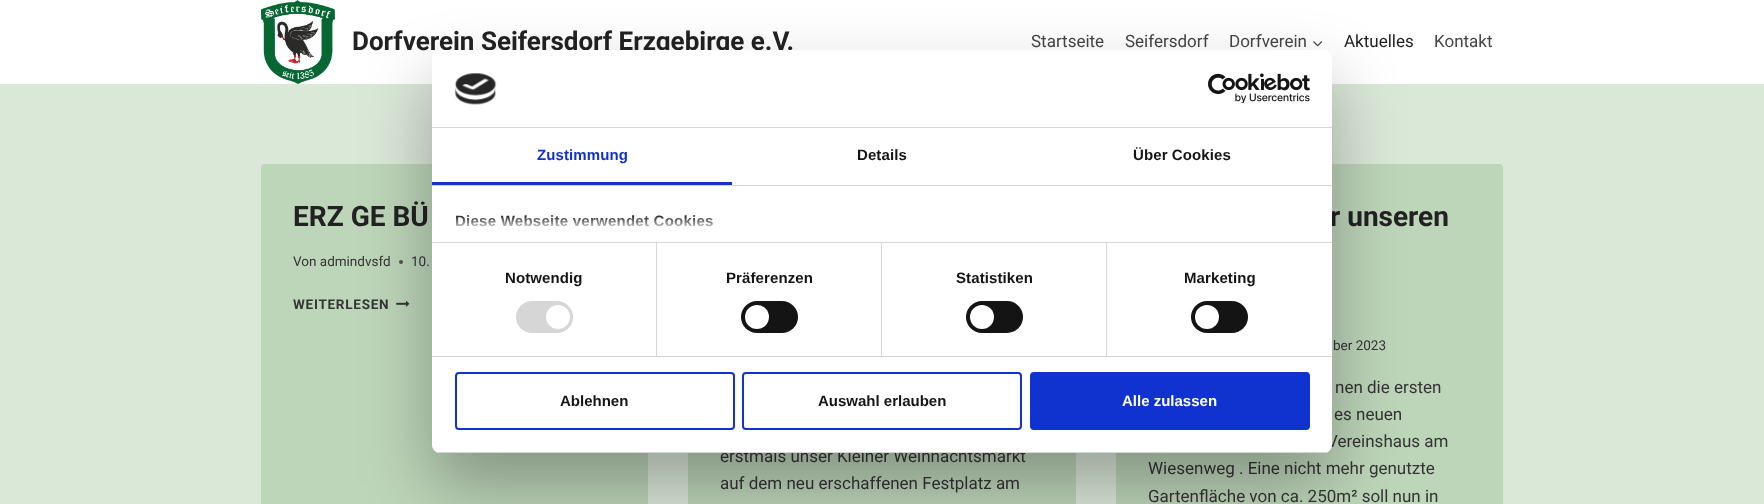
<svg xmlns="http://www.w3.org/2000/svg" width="1764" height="504">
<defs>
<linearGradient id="g1" gradientUnits="userSpaceOnUse" x1="872" y1="242" x2="872" y2="214"><stop offset="0" stop-color="#fff"/><stop offset="0.5" stop-color="#fff" stop-opacity="0.8"/><stop offset="1" stop-color="#fff" stop-opacity="0"/></linearGradient>
<clipPath id="clip1"><rect x="432" y="50" width="900" height="403" rx="8"/></clipPath>
</defs>
<rect width="100%" height="100%" fill="#dae8d8"/>
<rect width="1764" height="84" fill="#fff"/>
<image x="261" y="0" width="74" height="84" href="media/1.png"/>
<text x="352" y="50" style="font-family:Roboto;font-size:26px;font-weight:bold;fill:#222">Dorfverein Seifersdorf Erzgebirge e.V.</text>
<text x="1031" y="47" style="font-family:Roboto;font-size:17px;fill:#454545">Startseite</text>
<text x="1125" y="47" style="font-family:Roboto;font-size:17px;fill:#454545">Seifersdorf</text>
<text x="1229" y="47" style="font-family:Roboto;font-size:17px;fill:#454545">Dorfverein</text>
<image x="1313" y="41" width="10" height="6" href="media/2.png"/>
<text x="1344" y="47" style="font-family:Roboto;font-size:17px;fill:#222">Aktuelles</text>
<text x="1434" y="47" style="font-family:Roboto;font-size:17px;fill:#454545">Kontakt</text>
<rect x="261" y="164" width="387" height="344" rx="4" fill="#bdd5b9"/>
<text x="293" y="226" style="font-family:Roboto;font-size:28px;font-weight:bold;fill:#222">ERZ GE BÜ</text>
<text x="293" y="266" style="font-family:Roboto;font-size:13.5px;fill:#353535">Von admindvsfd</text>
<circle cx="401" cy="262" r="2" fill="#50554f"/>
<text x="411" y="266" style="font-family:Roboto;font-size:13.5px;fill:#353535">10.</text>
<text x="293" y="309" style="font-family:Roboto;font-size:13.5px;font-weight:bold;letter-spacing:0.75px;fill:#353535">WEITERLESEN</text>
<image x="396" y="301" width="14" height="6" href="media/3.png"/>
<rect x="688" y="453" width="388" height="51" fill="#bdd5b9"/>
<text x="720" y="462" style="font-family:Roboto;font-size:17px;fill:#353535">erstmals unser Kleiner Weihnachtsmarkt</text>
<text x="720" y="489" style="font-family:Roboto;font-size:17px;fill:#353535">auf dem neu erschaffenen Festplatz am</text>
<rect x="1116" y="164" width="387" height="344" rx="4" fill="#bdd5b9"/>
<text x="1330" y="226" style="font-family:Roboto;font-size:28px;font-weight:bold;fill:#222">r unseren</text>
<text x="1333" y="350" style="font-family:Roboto;font-size:13.5px;fill:#353535">ber 2023</text>
<text x="1335" y="393" style="font-family:Roboto;font-size:17px;fill:#353535">nen die ersten</text>
<text x="1334" y="420" style="font-family:Roboto;font-size:17px;fill:#353535">es neuen</text>
<text x="1327" y="447" style="font-family:Roboto;font-size:17px;fill:#353535">Vereinshaus am</text>
<text x="1148" y="474" style="font-family:Roboto;font-size:17px;fill:#353535">Wiesenweg . Eine nicht mehr genutzte</text>
<text x="1148" y="502" style="font-family:Roboto;font-size:17px;fill:#353535">Gartenfläche von ca. 250m² soll nun in</text>
<rect x="432" y="82" width="900" height="403" rx="8" fill="#0000004d" filter="blur(34px)"/>
<rect x="432" y="50" width="900" height="403" rx="8" fill="#fff"/>
<rect x="432" y="127" width="900" height="1" fill="#d6d6d6"/>
<image x="454" y="73" width="43" height="32" href="media/4.png"/>
<image x="1208" y="73" width="102" height="30" href="media/5.png"/>
<rect x="432" y="185" width="900" height="1" fill="#d6d6d6"/>
<rect x="432" y="182" width="300" height="3" fill="#1032cf"/>
<text x="537" y="160" style="font-family:Liberation Sans;font-size:15px;font-weight:bold;letter-spacing:0.1px;fill:#1032cf">Zustimmung</text>
<text x="857" y="160" style="font-family:Liberation Sans;font-size:15px;font-weight:bold;letter-spacing:0.1px;fill:#141414">Details</text>
<text x="1133" y="160" style="font-family:Liberation Sans;font-size:15px;font-weight:bold;letter-spacing:0.1px;fill:#141414">Über Cookies</text>
<rect x="432" y="242" width="900" height="1" fill="#d6d6d6"/>
<text x="455" y="226" style="font-family:Liberation Sans;font-size:15px;font-weight:bold;letter-spacing:0.25px;fill:#141414">Diese Webseite verwendet Cookies</text>
<rect x="455" y="215" width="258" height="12" fill="url(#g1)"/>
<rect x="432" y="356" width="900" height="1" fill="#d6d6d6"/>
<rect x="656" y="243" width="1" height="113" fill="#d6d6d6"/>
<text x="505" y="283" style="font-family:Liberation Sans;font-size:15px;font-weight:bold;letter-spacing:0.1px;fill:#141414">Notwendig</text>
<rect x="516" y="301" width="57" height="32" rx="16" fill="#d6d6d6"/>
<circle cx="558" cy="317" r="12" fill="#fff"/>
<rect x="881" y="243" width="1" height="113" fill="#d6d6d6"/>
<text x="726" y="283" style="font-family:Liberation Sans;font-size:15px;font-weight:bold;letter-spacing:0.1px;fill:#141414">Präferenzen</text>
<rect x="741" y="301" width="57" height="32" rx="16" fill="#141414"/>
<circle cx="757" cy="317" r="12" fill="#fff"/>
<rect x="1106" y="243" width="1" height="113" fill="#d6d6d6"/>
<text x="956" y="283" style="font-family:Liberation Sans;font-size:15px;font-weight:bold;letter-spacing:0.1px;fill:#141414">Statistiken</text>
<rect x="966" y="301" width="57" height="32" rx="16" fill="#141414"/>
<circle cx="982" cy="317" r="12" fill="#fff"/>
<text x="1184" y="283" style="font-family:Liberation Sans;font-size:15px;font-weight:bold;letter-spacing:0.1px;fill:#141414">Marketing</text>
<rect x="1191" y="301" width="57" height="32" rx="16" fill="#141414"/>
<circle cx="1207" cy="317" r="12" fill="#fff"/>
<g clip-path="url(#clip1)">
<rect x="432" y="452" width="900" height="1" fill="#d6d6d6"/>
</g>
<rect x="456" y="373" width="278" height="56" rx="3" fill="none" stroke="#1032cf" stroke-width="2"/>
<text x="560" y="406" style="font-family:Liberation Sans;font-size:15px;font-weight:bold;fill:#141414">Ablehnen</text>
<rect x="743" y="373" width="278" height="56" rx="3" fill="none" stroke="#1032cf" stroke-width="2"/>
<text x="818" y="406" style="font-family:Liberation Sans;font-size:15px;font-weight:bold;fill:#141414">Auswahl erlauben</text>
<rect x="1031" y="373" width="278" height="56" rx="3" fill="#1032cf" stroke="#1032cf" stroke-width="2"/>
<text x="1122" y="406" style="font-family:Liberation Sans;font-size:15px;font-weight:bold;fill:#fff">Alle zulassen</text>
</svg>
